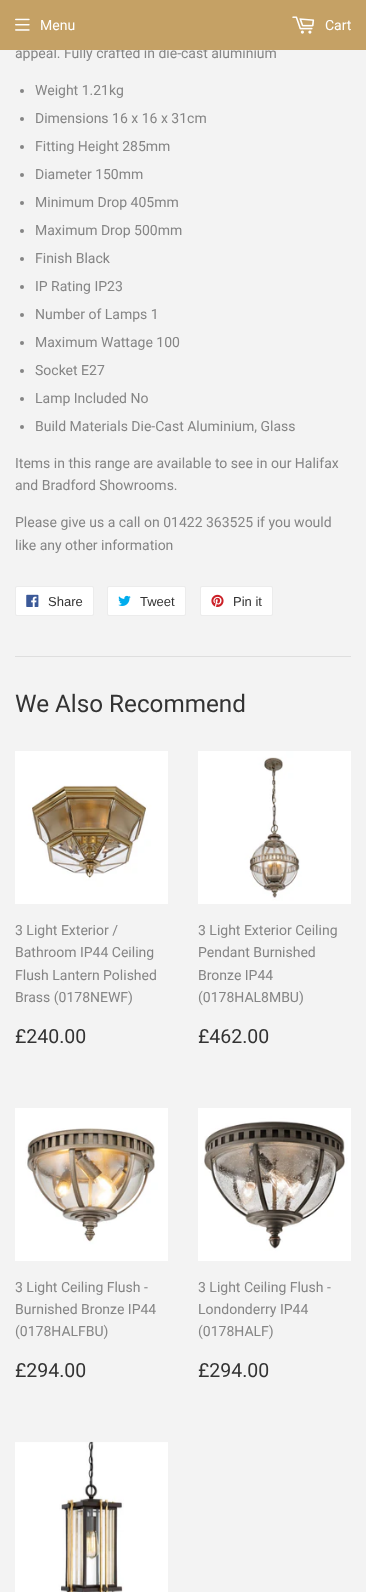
<svg xmlns="http://www.w3.org/2000/svg" width="366" height="1592">
<rect width="100%" height="100%" fill="#f3f3f3"/>
<text x="15" y="58" style="font-family:Roboto;font-size:14px;fill:#858585">appeal. Fully crafted in die-cast aluminium</text>
<rect width="366" height="50" fill="#c5a165"/>
<image x="15" y="18" width="15" height="13" href="media/1.png"/>
<text x="40" y="30" style="font-family:Roboto;font-size:14px;fill:#fff">Menu</text>
<image x="292" y="16" width="23" height="18" href="media/2.png"/>
<text x="325" y="30" style="font-family:Roboto;font-size:14px;fill:#fff">Cart</text>
<circle cx="22" cy="91" r="2" fill="#858585"/>
<text x="35" y="95" style="font-family:Roboto;font-size:14px;fill:#858585">Weight 1.21kg</text>
<circle cx="22" cy="119" r="2" fill="#858585"/>
<text x="35" y="123" style="font-family:Roboto;font-size:14px;fill:#858585">Dimensions 16 x 16 x 31cm</text>
<circle cx="22" cy="147" r="2" fill="#858585"/>
<text x="35" y="151" style="font-family:Roboto;font-size:14px;fill:#858585">Fitting Height 285mm</text>
<circle cx="22" cy="175" r="2" fill="#858585"/>
<text x="35" y="179" style="font-family:Roboto;font-size:14px;fill:#858585">Diameter 150mm</text>
<circle cx="22" cy="203" r="2" fill="#858585"/>
<text x="35" y="207" style="font-family:Roboto;font-size:14px;fill:#858585">Minimum Drop 405mm</text>
<circle cx="22" cy="231" r="2" fill="#858585"/>
<text x="35" y="235" style="font-family:Roboto;font-size:14px;fill:#858585">Maximum Drop 500mm</text>
<circle cx="22" cy="259" r="2" fill="#858585"/>
<text x="35" y="263" style="font-family:Roboto;font-size:14px;fill:#858585">Finish Black</text>
<circle cx="22" cy="287" r="2" fill="#858585"/>
<text x="35" y="291" style="font-family:Roboto;font-size:14px;fill:#858585">IP Rating IP23</text>
<circle cx="22" cy="315" r="2" fill="#858585"/>
<text x="35" y="319" style="font-family:Roboto;font-size:14px;fill:#858585">Number of Lamps 1</text>
<circle cx="22" cy="343" r="2" fill="#858585"/>
<text x="35" y="347" style="font-family:Roboto;font-size:14px;fill:#858585">Maximum Wattage 100</text>
<circle cx="22" cy="371" r="2" fill="#858585"/>
<text x="35" y="375" style="font-family:Roboto;font-size:14px;fill:#858585">Socket E27</text>
<circle cx="22" cy="399" r="2" fill="#858585"/>
<text x="35" y="403" style="font-family:Roboto;font-size:14px;fill:#858585">Lamp Included No</text>
<circle cx="22" cy="427" r="2" fill="#858585"/>
<text x="35" y="431" style="font-family:Roboto;font-size:14px;fill:#858585">Build Materials Die-Cast Aluminium, Glass</text>
<text x="15" y="468" style="font-family:Roboto;font-size:14px;fill:#858585">Items in this range are available to see in our Halifax</text>
<text x="15" y="490" style="font-family:Roboto;font-size:14px;fill:#858585">and Bradford Showrooms.</text>
<text x="15" y="527" style="font-family:Roboto;font-size:14px;fill:#858585">Please give us a call on 01422 363525 if you would</text>
<text x="15" y="550" style="font-family:Roboto;font-size:14px;fill:#858585">like any other information</text>
<rect x="15.5" y="586.5" width="78" height="29" rx="1.5" fill="#fff" stroke="#ececec"/>
<image x="26" y="594" width="13" height="13" href="media/3.png"/>
<text x="48" y="606" style="font-family:Liberation Sans;font-size:13px;fill:#333">Share</text>
<rect x="107.5" y="586.5" width="78" height="29" rx="1.5" fill="#fff" stroke="#ececec"/>
<image x="118" y="595" width="13" height="11" href="media/4.png"/>
<text x="140" y="606" style="font-family:Liberation Sans;font-size:13px;fill:#333">Tweet</text>
<rect x="200.5" y="586.5" width="72" height="29" rx="1.5" fill="#fff" stroke="#ececec"/>
<image x="211" y="594" width="13" height="13" href="media/5.png"/>
<text x="233" y="606" style="font-family:Liberation Sans;font-size:13px;fill:#333">Pin it</text>
<rect x="15" y="656" width="336" height="1" fill="#dedede"/>
<text x="15" y="712" style="font-family:Roboto;font-size:24.25px;fill:#333">We Also Recommend</text>
<image x="15" y="751" width="153" height="153" href="media/6.png"/>
<text x="15" y="935" style="font-family:Roboto;font-size:14px;fill:#858585">3 Light Exterior /</text>
<text x="15" y="957" style="font-family:Roboto;font-size:14px;fill:#858585">Bathroom IP44 Ceiling</text>
<text x="15" y="980" style="font-family:Roboto;font-size:14px;fill:#858585">Flush Lantern Polished</text>
<text x="15" y="1002" style="font-family:Roboto;font-size:14px;fill:#858585">Brass (0178NEWF)</text>
<text x="15" y="1043" style="font-family:Roboto;font-size:19.5px;fill:#333">£240.00</text>
<image x="198" y="751" width="153" height="153" href="media/7.png"/>
<text x="198" y="935" style="font-family:Roboto;font-size:14px;fill:#858585">3 Light Exterior Ceiling</text>
<text x="198" y="957" style="font-family:Roboto;font-size:14px;fill:#858585">Pendant Burnished</text>
<text x="198" y="980" style="font-family:Roboto;font-size:14px;fill:#858585">Bronze IP44</text>
<text x="198" y="1002" style="font-family:Roboto;font-size:14px;fill:#858585">(0178HAL8MBU)</text>
<text x="198" y="1043" style="font-family:Roboto;font-size:19.5px;fill:#333">£462.00</text>
<image x="15" y="1108" width="153" height="153" href="media/8.png"/>
<text x="15" y="1292" style="font-family:Roboto;font-size:14px;fill:#858585">3 Light Ceiling Flush -</text>
<text x="15" y="1314" style="font-family:Roboto;font-size:14px;fill:#858585">Burnished Bronze IP44</text>
<text x="15" y="1336" style="font-family:Roboto;font-size:14px;fill:#858585">(0178HALFBU)</text>
<text x="15" y="1377" style="font-family:Roboto;font-size:19.5px;fill:#333">£294.00</text>
<image x="198" y="1108" width="153" height="153" href="media/9.png"/>
<text x="198" y="1292" style="font-family:Roboto;font-size:14px;fill:#858585">3 Light Ceiling Flush -</text>
<text x="198" y="1314" style="font-family:Roboto;font-size:14px;fill:#858585">Londonderry IP44</text>
<text x="198" y="1336" style="font-family:Roboto;font-size:14px;fill:#858585">(0178HALF)</text>
<text x="198" y="1377" style="font-family:Roboto;font-size:19.5px;fill:#333">£294.00</text>
<image x="15" y="1441" width="153" height="151" href="media/10.png"/>
</svg>
